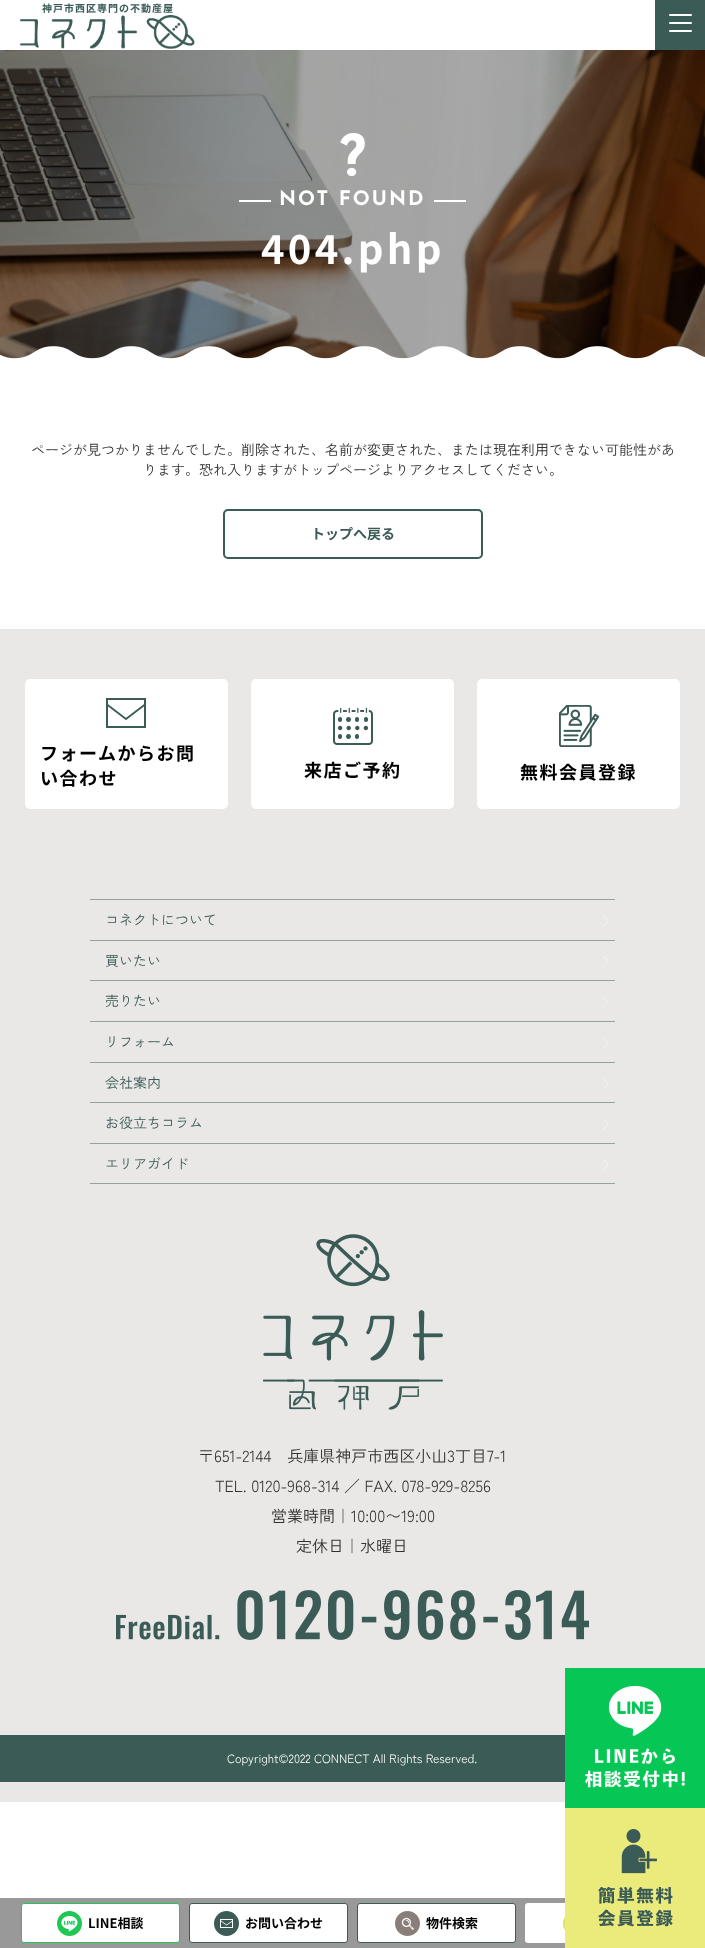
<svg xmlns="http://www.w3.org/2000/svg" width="705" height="1948">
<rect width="100%" height="100%" fill="#fff"/>
<text x="42" y="12" style="font-family:Noto Sans JP;font-size:10px;font-weight:100;letter-spacing:1px;fill:#3b5b57">神戸市西区専門の不動産屋</text>
<image x="20" y="15" width="175" height="34" href="media/1.png"/>
<rect x="655" width="50" height="50" fill="#3b5b57"/>
<rect x="669" y="14" width="23" height="2" rx="1" fill="#fff"/>
<rect x="669" y="22" width="23" height="2" rx="1" fill="#fff"/>
<rect x="669" y="30" width="23" height="2" rx="1" fill="#fff"/>
<image x="0" y="50" width="705" height="309" href="media/2.png"/>
<image x="340" y="133" width="25" height="43" href="media/3.png"/>
<rect x="239" y="200" width="32" height="2" fill="#fff"/>
<text x="279" y="205" style="font-family:Josefin Sans;font-size:20px;font-weight:100;letter-spacing:2px;fill:#fff">NOT FOUND</text>
<rect x="434" y="200" width="32" height="2" fill="#fff"/>
<text x="261" y="264" style="font-family:Noto Sans JP;font-size:40px;font-weight:100;letter-spacing:3.25px;fill:#fff">404.php</text>
<image x="0" y="346" width="705" height="34" href="media/4.png"/>
<text x="31" y="455" style="font-family:Zen Kaku Gothic New;font-size:14px;fill:#333">ページが見つかりませんでした。削除された、名前が変更された、または現在利用できない可能性があ</text>
<text x="143" y="475" style="font-family:Zen Kaku Gothic New;font-size:14px;fill:#333">ります。恐れ入りますがトップページよりアクセスしてください。</text>
<rect x="224" y="510" width="258" height="48" rx="4" fill="none" stroke="#3b5b57" stroke-width="2"/>
<text x="311" y="539" style="font-family:Noto Sans JP;font-size:14px;font-weight:100;fill:#3b5b57">トップへ戻る</text>
<rect y="629" width="705" height="1173" fill="#eae8e6"/>
<rect x="25" y="679" width="203" height="130" rx="5" fill="#fff"/>
<rect x="107" y="699" width="38" height="28" fill="none" stroke="#3b5b57" stroke-width="2"/>
<path d="M145 704.5l-19 14.5l-19-14.5" fill="#fff" stroke="#3b5b57" stroke-width="1.8" stroke-linejoin="round"/>
<text x="40" y="760" style="font-family:Noto Sans JP;font-size:18px;font-weight:100;letter-spacing:1.5px;fill:#000">フォームからお問</text>
<text x="40" y="785" style="font-family:Noto Sans JP;font-size:18px;font-weight:100;letter-spacing:1.5px;fill:#000">い合わせ</text>
<rect x="251" y="679" width="203" height="130" rx="5" fill="#fff"/>
<image x="333" y="707" width="40" height="38" href="media/5.png"/>
<text x="304" y="777" style="font-family:Noto Sans JP;font-size:18px;font-weight:100;letter-spacing:1.5px;fill:#000">来店ご予約</text>
<rect x="477" y="679" width="203" height="130" rx="5" fill="#fff"/>
<image x="559" y="705" width="40" height="42" href="media/6.png"/>
<text x="520" y="779" style="font-family:Noto Sans JP;font-size:18px;font-weight:100;letter-spacing:1.5px;fill:#000">無料会員登録</text>
<rect x="90" y="899" width="525" height="1" fill="#93a29f"/>
<rect x="90" y="940" width="525" height="1" fill="#93a29f"/>
<text x="105" y="925" style="font-family:Zen Kaku Gothic New;font-size:14px;fill:#3b5b57">コネクトについて</text>
<path d="M603.5 915.5l5.5 5.5h-1l-5-5zm5.5 5.5l-5.5 6l-.5-1l5-5z" fill="#f5f4f3"/>
<rect x="90" y="980" width="525" height="1" fill="#93a29f"/>
<text x="105" y="966" style="font-family:Zen Kaku Gothic New;font-size:14px;fill:#3b5b57">買いたい</text>
<path d="M603.5 956l5.5 5.5h-1l-5-4.5z" fill="#f5f4f3"/>
<path d="M609 961.5l-5.5 6l-.5-1l5-5z" fill="#f5f4f3"/>
<rect x="90" y="1021" width="525" height="1" fill="#93a29f"/>
<text x="105" y="1006" style="font-family:Zen Kaku Gothic New;font-size:14px;fill:#3b5b57">売りたい</text>
<path d="M603.5 996.5l5.5 6h-1l-5-5z" fill="#f5f4f3"/>
<path d="M609 1002.5l-5.5 5.5l-.5-.5l5-5z" fill="#f5f4f3"/>
<rect x="90" y="1062" width="525" height="1" fill="#93a29f"/>
<text x="105" y="1047" style="font-family:Zen Kaku Gothic New;font-size:14px;fill:#3b5b57">リフォーム</text>
<path d="M603.5 1037.5l5.5 5.5h-1l-5-5zm5.5 5.5l-5.5 5.5l-.5-.5l5-5z" fill="#f5f4f3"/>
<rect x="90" y="1102" width="525" height="1" fill="#93a29f"/>
<text x="105" y="1088" style="font-family:Zen Kaku Gothic New;font-size:14px;fill:#3b5b57">会社案内</text>
<path d="M603.5 1078l5.5 5.5h-1l-5-5z" fill="#f5f4f3"/>
<path d="M609 1083.5l-5.5 5.5l-.5-.5l5-5z" fill="#f5f4f3"/>
<rect x="90" y="1143" width="525" height="1" fill="#93a29f"/>
<text x="105" y="1128" style="font-family:Zen Kaku Gothic New;font-size:14px;fill:#3b5b57">お役立ちコラム</text>
<path d="M603.5 1118.5l5.5 5.5h-1l-5-5zm5.5 5.5l-5.5 6l-.5-1l5-5z" fill="#f5f4f3"/>
<rect x="90" y="1183" width="525" height="1" fill="#93a29f"/>
<text x="105" y="1169" style="font-family:Zen Kaku Gothic New;font-size:14px;fill:#3b5b57">エリアガイド</text>
<path d="M603.5 1159l5.5 5.5h-1l-5-4.5z" fill="#f5f4f3"/>
<path d="M609 1164.5l-5.5 6l-.5-1l5-5z" fill="#f5f4f3"/>
<image x="263" y="1234" width="180" height="176" href="media/7.png"/>
<text x="198" y="1462" style="font-family:Zen Kaku Gothic New;font-size:16px;fill:#333">〒651-2144　兵庫県神戸市西区小山3丁目7-1</text>
<text x="215" y="1492" style="font-family:Zen Kaku Gothic New;font-size:16px;fill:#333">TEL. 0120-968-314 ／ FAX. 078-929-8256</text>
<text x="271" y="1522" style="font-family:Zen Kaku Gothic New;font-size:16px;fill:#333">営業時間｜10:00〜19:00</text>
<text x="296" y="1552" style="font-family:Zen Kaku Gothic New;font-size:16px;fill:#333">定休日｜水曜日</text>
<image x="116" y="1590" width="473" height="50" href="media/8.png"/>
<rect y="1735" width="565" height="47" fill="#3b5b57"/>
<text x="227" y="1763" style="font-family:Zen Kaku Gothic New;font-size:12px;fill:#fff">Copyright©︎2022 CONNECT All Rights Reserved.</text>
<image x="565" y="1668" width="140" height="140" href="media/9.png"/>
<rect y="1898" width="565" height="50" fill="#00000066"/>
<rect x="525" y="1903" width="159" height="40" rx="3" fill="#fff"/>
<image x="565" y="1808" width="140" height="140" href="media/10.png"/>
<rect x="21.5" y="1903.5" width="158" height="39" rx="2.5" fill="#fff" stroke="#20c755"/>
<image x="57" y="1911" width="25" height="25" href="media/11.png"/>
<text x="88" y="1928" style="font-family:Noto Sans JP;font-size:13px;font-weight:100;fill:#000">LINE相談</text>
<rect x="189.5" y="1903.5" width="158" height="39" rx="2.5" fill="#fff" stroke="#3b5b57"/>
<circle cx="226.5" cy="1923.5" r="12.5" fill="#3b5b57"/>
<rect x="220.5" y="1919.5" width="12" height="8" fill="none" stroke="#fff"/>
<path d="M232.5 1921l-6 4l-5.5-4" fill="none" stroke="#fff" stroke-width="0.9" stroke-linejoin="round"/>
<text x="245" y="1928" style="font-family:Noto Sans JP;font-size:13px;font-weight:100;fill:#000">お問い合わせ</text>
<rect x="357.5" y="1903.5" width="158" height="39" rx="2.5" fill="#fff" stroke="#3b5b57"/>
<image x="395" y="1911" width="25" height="25" href="media/12.png"/>
<text x="426" y="1928" style="font-family:Noto Sans JP;font-size:13px;font-weight:100;fill:#000">物件検索</text>
<image x="563" y="1917" width="2" height="13" href="media/13.png"/>
</svg>
